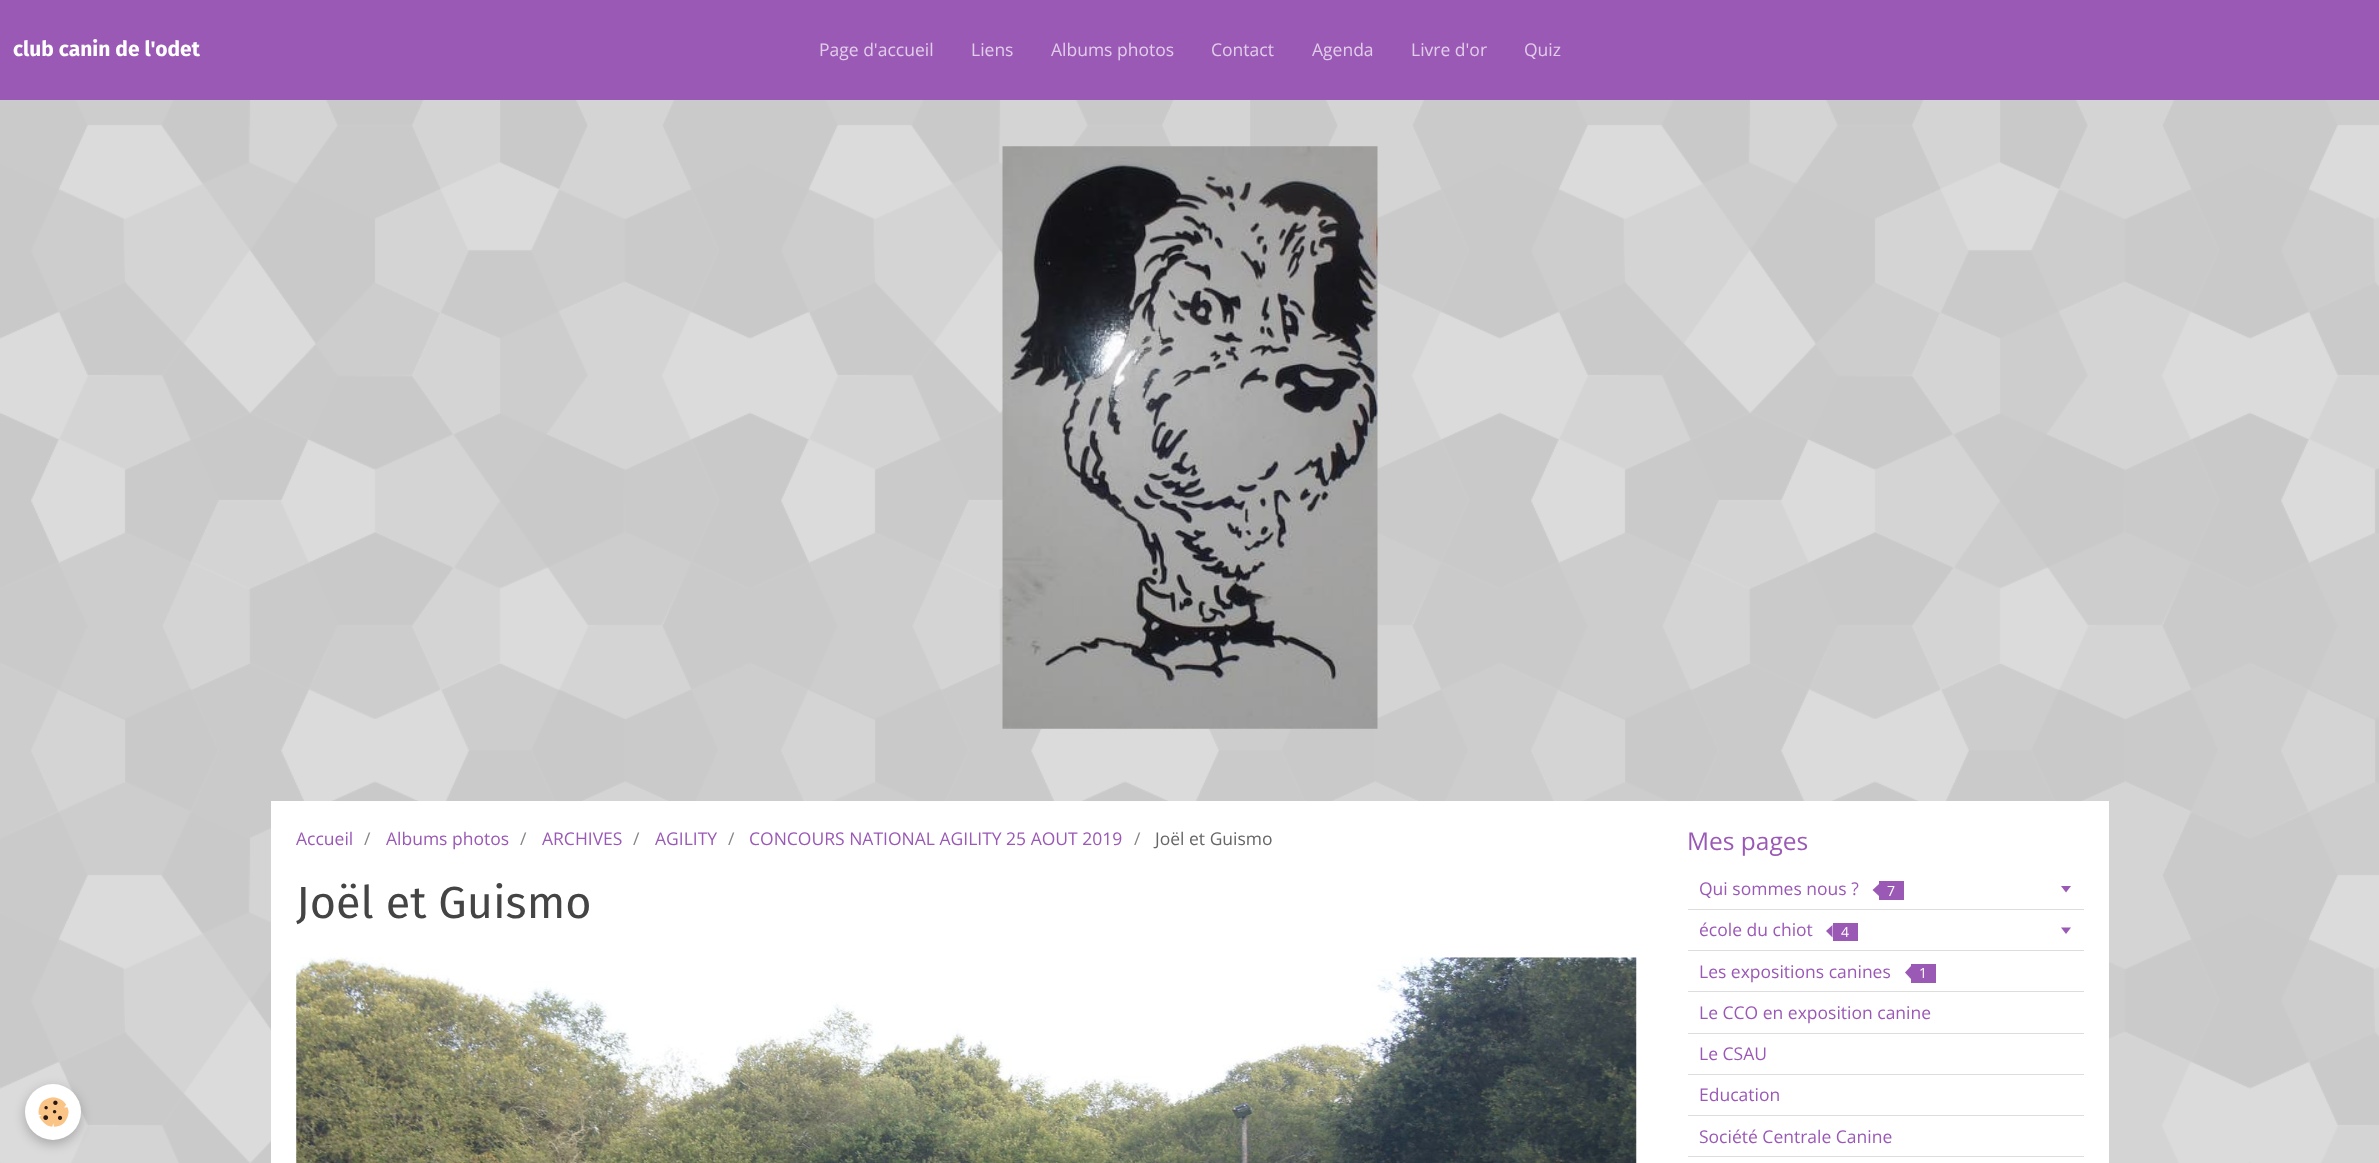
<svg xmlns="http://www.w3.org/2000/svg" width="2379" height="1163">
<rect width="100%" height="100%" fill="#e0e0e0"/>
<image x="0" y="100" width="2379" height="1063" href="media/1.png"/>
<rect width="2379" height="100" fill="#9b59b6"/>
<text x="13" y="56" style="font-family:Fira Sans;font-size:21px;font-weight:bold;fill:#fff">club canin de l'odet</text>
<text x="819" y="56" style="font-family:Open Sans;font-size:17.5px;fill:#e1cde9">Page d'accueil</text>
<text x="971" y="56" style="font-family:Open Sans;font-size:17.5px;fill:#e1cde9">Liens</text>
<text x="1051" y="56" style="font-family:Open Sans;font-size:17.5px;fill:#e1cde9">Albums photos</text>
<text x="1211" y="56" style="font-family:Open Sans;font-size:17.5px;fill:#e1cde9">Contact</text>
<text x="1312" y="56" style="font-family:Open Sans;font-size:17.5px;fill:#e1cde9">Agenda</text>
<text x="1411" y="56" style="font-family:Open Sans;font-size:17.5px;fill:#e1cde9">Livre d'or</text>
<text x="1524" y="56" style="font-family:Open Sans;font-size:17.5px;fill:#e1cde9">Quiz</text>
<image x="1002" y="146" width="376" height="583" href="media/2.png"/>
<rect x="25" y="1088" width="56" height="56" rx="28" fill="#0000003d" filter="blur(6px)"/>
<circle cx="53" cy="1112" r="28" fill="#fff"/>
<image x="38" y="1097" width="31" height="30" href="media/3.png"/>
<rect x="271" y="801" width="1838" height="362" fill="#fff"/>
<text x="296" y="845" style="font-family:Open Sans;font-size:17.5px;fill:#9b59b6">Accueil</text>
<text x="364" y="845" style="font-family:Open Sans;font-size:17.5px;fill:#858585">/</text>
<text x="386" y="845" style="font-family:Open Sans;font-size:17.5px;fill:#9b59b6">Albums photos</text>
<text x="520" y="845" style="font-family:Open Sans;font-size:17.5px;fill:#858585">/</text>
<text x="542" y="845" style="font-family:Open Sans;font-size:17.5px;fill:#9b59b6">ARCHIVES</text>
<text x="633" y="845" style="font-family:Open Sans;font-size:17.5px;fill:#858585">/</text>
<text x="655" y="845" style="font-family:Open Sans;font-size:17.5px;fill:#9b59b6">AGILITY</text>
<text x="728" y="845" style="font-family:Open Sans;font-size:17.5px;fill:#858585">/</text>
<text x="749" y="845" style="font-family:Open Sans;font-size:17.5px;fill:#9b59b6">CONCOURS NATIONAL AGILITY 25 AOUT 2019</text>
<text x="1134" y="845" style="font-family:Open Sans;font-size:17.5px;fill:#858585">/</text>
<text x="1155" y="845" style="font-family:Open Sans;font-size:17.5px;fill:#666">Joël et Guismo</text>
<text x="296" y="918" style="font-family:Fira Sans;font-size:45px;fill:#444">Joël et Guismo</text>
<image x="296" y="957" width="1341" height="206" href="media/4.png"/>
<text x="1687" y="850" style="font-family:Open Sans;font-size:24.5px;fill:#9b59b6">Mes pages</text>
<rect x="1688" y="909" width="396" height="1" fill="#ddd"/>
<text x="1699" y="895" style="font-family:Open Sans;font-size:17.5px;fill:#9b59b6">Qui sommes nous ?</text>
<rect x="1879" y="881" width="25" height="19" fill="#9b59b6"/>
<path d="M1879 884v12l-6.5-6z" fill="#9b59b6"/>
<text x="1887" y="896" style="font-family:Open Sans;font-size:14px;fill:#fff">7</text>
<path d="M2061 886h10l-5 6.5z" fill="#9b59b6"/>
<rect x="1688" y="950" width="396" height="1" fill="#ddd"/>
<text x="1699" y="936" style="font-family:Open Sans;font-size:17.5px;fill:#9b59b6">école du chiot</text>
<rect x="1833" y="923" width="25" height="18" fill="#9b59b6"/>
<path d="M1832.5 925v12.5l-6.5-6.5z" fill="#9b59b6"/>
<text x="1841" y="937" style="font-family:Open Sans;font-size:14px;fill:#fff">4</text>
<path d="M2061 927.5h10l-5 6.5z" fill="#9b59b6"/>
<rect x="1688" y="991" width="396" height="1" fill="#ddd"/>
<text x="1699" y="978" style="font-family:Open Sans;font-size:17.5px;fill:#9b59b6">Les expositions canines</text>
<rect x="1911" y="964" width="25" height="19" fill="#9b59b6"/>
<path d="M1911 966v13l-6-6.5z" fill="#9b59b6"/>
<text x="1919" y="978" style="font-family:Open Sans;font-size:14px;fill:#fff">1</text>
<rect x="1688" y="1033" width="396" height="1" fill="#ddd"/>
<text x="1699" y="1019" style="font-family:Open Sans;font-size:17.5px;fill:#9b59b6">Le CCO en exposition canine</text>
<rect x="1688" y="1074" width="396" height="1" fill="#ddd"/>
<text x="1699" y="1060" style="font-family:Open Sans;font-size:17.5px;fill:#9b59b6">Le CSAU</text>
<rect x="1688" y="1115" width="396" height="1" fill="#ddd"/>
<text x="1699" y="1101" style="font-family:Open Sans;font-size:17.5px;fill:#9b59b6">Education</text>
<rect x="1688" y="1156" width="396" height="1" fill="#ddd"/>
<text x="1699" y="1143" style="font-family:Open Sans;font-size:17.5px;fill:#9b59b6">Société Centrale Canine</text>
</svg>
